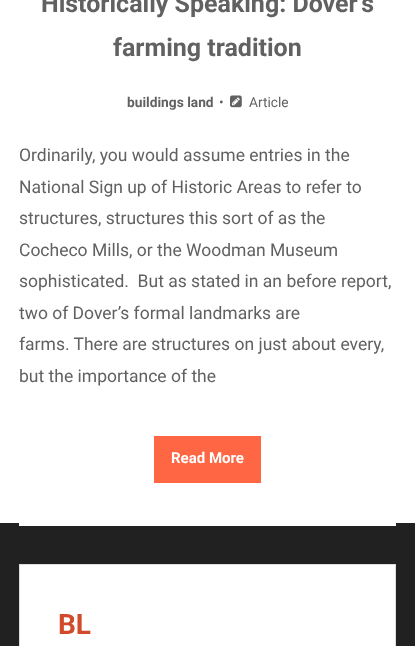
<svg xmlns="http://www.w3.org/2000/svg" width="415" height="646">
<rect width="100%" height="100%" fill="#fff"/>
<rect y="523" width="415" height="123" fill="#212121"/>
<rect x="19" y="523" width="377" height="3" fill="#fff"/>
<text x="41" y="12" style="font-family:Roboto;font-size:25px;font-weight:bold;fill:#616161">Historically Speaking: Dover’s</text>
<text x="113" y="56" style="font-family:Roboto;font-size:25px;font-weight:bold;fill:#616161">farming tradition</text>
<text x="127" y="107" style="font-family:Roboto;font-size:13.75px;font-weight:bold;fill:#616161">buildings land</text>
<text x="219" y="107" style="font-family:Roboto;font-size:13.75px;fill:#616161">•</text>
<image x="230" y="95" width="12" height="13" href="media/1.png"/>
<text x="249" y="107" style="font-family:Roboto;font-size:13.75px;fill:#616161">Article</text>
<text x="19" y="161" style="font-family:Roboto;font-size:17.5px;fill:#616161">Ordinarily, you would assume entries in the</text>
<text x="19" y="193" style="font-family:Roboto;font-size:17.5px;fill:#616161">National Sign up of Historic Areas to refer to</text>
<text x="19" y="224" style="font-family:Roboto;font-size:17.5px;fill:#616161">structures, structures this sort of as the</text>
<text x="19" y="256" style="font-family:Roboto;font-size:17.5px;fill:#616161">Cocheco Mills, or the Woodman Museum</text>
<text x="19" y="287" style="font-family:Roboto;font-size:17.5px;fill:#616161" xml:space="preserve">sophisticated.  But as stated in an before report,</text>
<text x="19" y="319" style="font-family:Roboto;font-size:17.5px;fill:#616161">two of Dover’s formal landmarks are</text>
<text x="19" y="350" style="font-family:Roboto;font-size:17.5px;fill:#616161">farms. There are structures on just about every,</text>
<text x="19" y="382" style="font-family:Roboto;font-size:17.5px;fill:#616161">but the importance of the</text>
<rect x="154" y="436" width="107" height="47" fill="#f64"/>
<text x="171" y="463" style="font-family:Roboto;font-size:15px;font-weight:bold;fill:#fff">Read More</text>
<rect x="19.5" y="564.5" width="376" height="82" fill="#fff" stroke="#ddd"/>
<text x="58" y="634" style="font-family:Roboto;font-size:28px;font-weight:bold;fill:#d14a2b">BL</text>
</svg>
